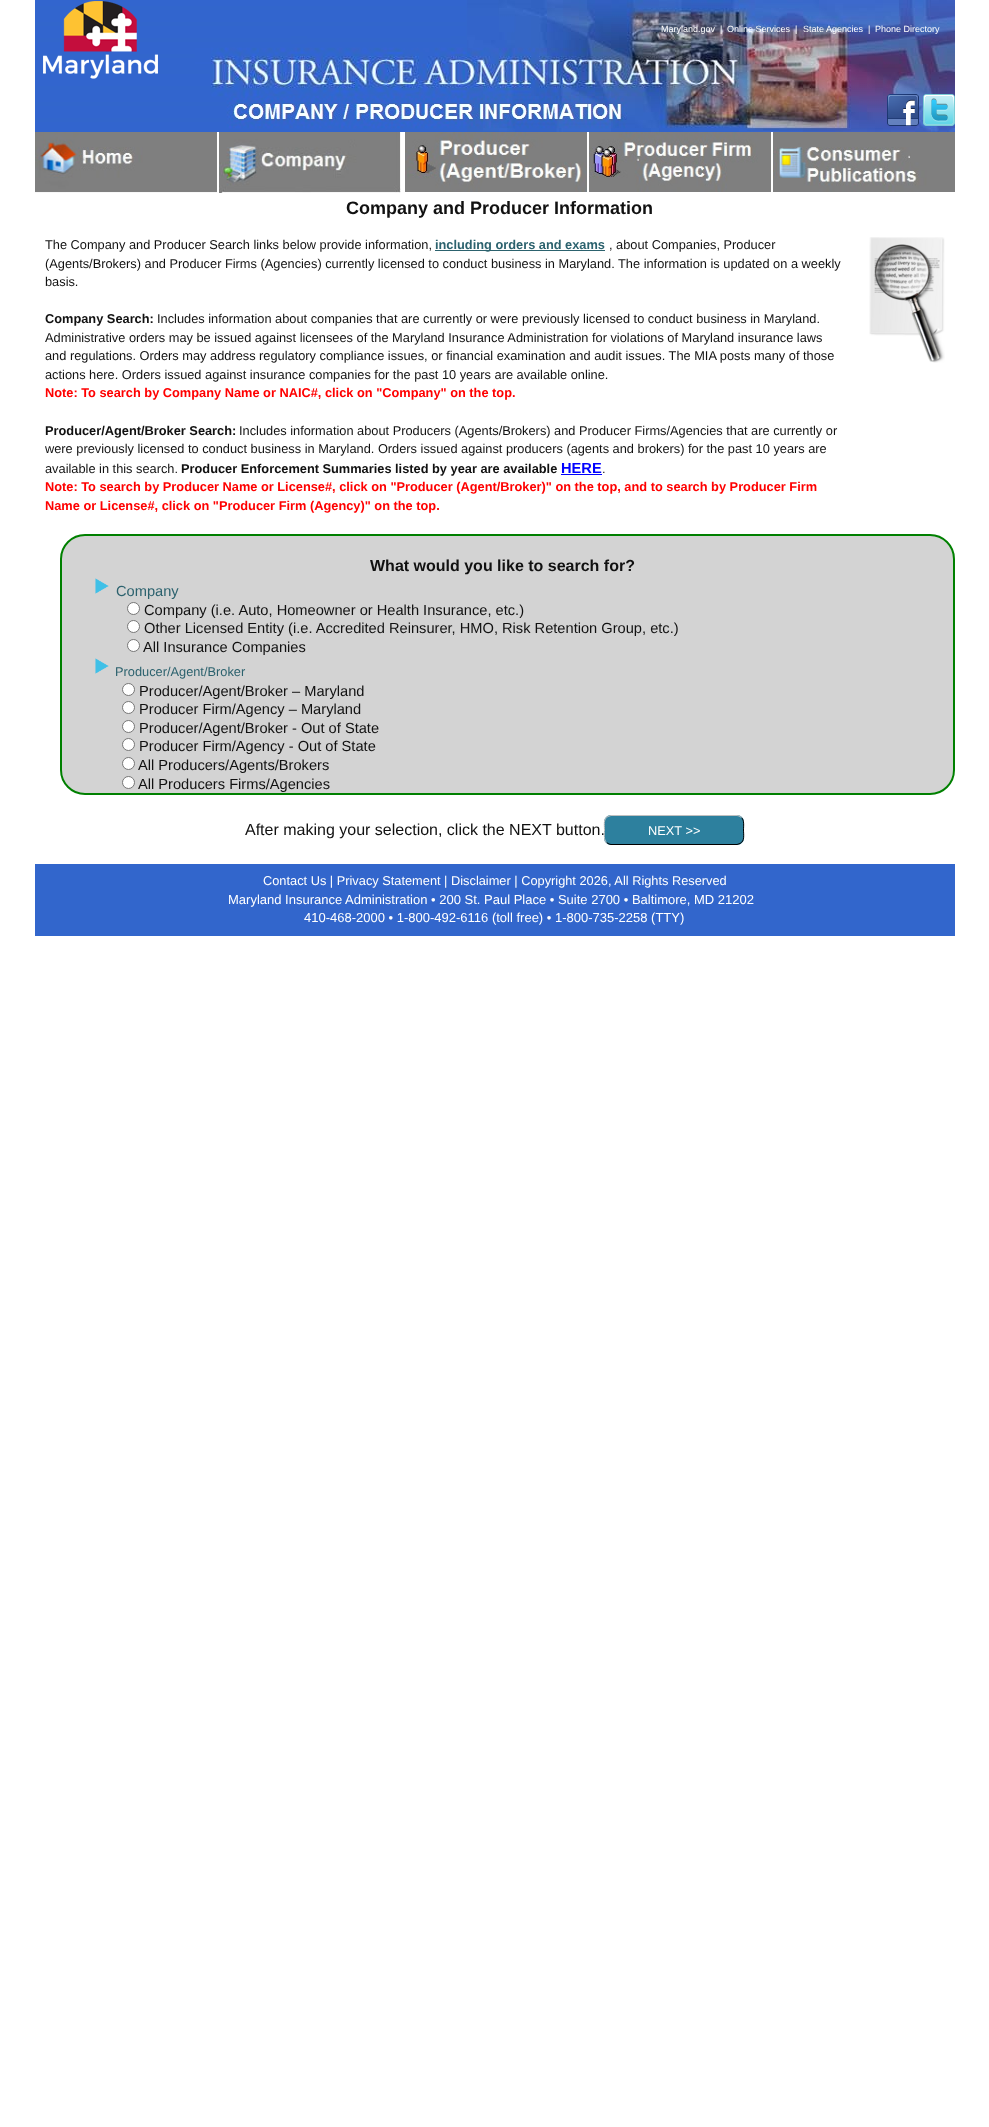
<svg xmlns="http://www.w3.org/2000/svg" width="989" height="2127">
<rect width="100%" height="100%" fill="#fff"/>
<image x="35" y="0" width="920" height="132" href="media/1.png"/>
<image x="43" y="1" width="115" height="78" href="media/2.png"/>
<text x="661" y="32" style="font-family:Liberation Sans;font-size:9px;fill:#fff">Maryland.gov</text>
<text x="720" y="32" style="font-family:Liberation Sans;font-size:9px;fill:#fff">|</text>
<text x="727" y="32" style="font-family:Liberation Sans;font-size:9px;fill:#fff">Online Services</text>
<text x="795" y="32" style="font-family:Liberation Sans;font-size:9px;fill:#fff">|</text>
<text x="803" y="32" style="font-family:Liberation Sans;font-size:9px;fill:#fff">State Agencies</text>
<text x="868" y="32" style="font-family:Liberation Sans;font-size:9px;fill:#fff">|</text>
<text x="875" y="32" style="font-family:Liberation Sans;font-size:9px;fill:#fff">Phone Directory</text>
<image x="887" y="94" width="32" height="32" href="media/3.png"/>
<image x="923" y="94" width="32" height="32" href="media/4.png"/>
<image x="35" y="132" width="182" height="61" href="media/5.png"/>
<image x="219" y="132" width="182" height="61" href="media/6.png"/>
<image x="405" y="132" width="182" height="60" href="media/7.png"/>
<image x="589" y="132" width="182" height="60" href="media/8.png"/>
<image x="773" y="132" width="182" height="60" href="media/9.png"/>
<text x="346" y="214" style="font-family:Liberation Sans;font-size:18px;font-weight:bold;fill:#111">Company and Producer Information</text>
<text x="45" y="249" style="font-family:Liberation Sans;font-size:12.8px;fill:#111">The Company and Producer Search links below provide information,</text>
<rect x="435" y="250" width="170" height="1" fill="#2c626e"/>
<text x="435" y="249" style="font-family:Liberation Sans;font-size:12.8px;font-weight:bold;fill:#2c626e">including orders and exams</text>
<text x="609" y="249" style="font-family:Liberation Sans;font-size:12.8px;fill:#111">, about Companies, Producer</text>
<text x="45" y="268" style="font-family:Liberation Sans;font-size:12.8px;fill:#111">(Agents/Brokers) and Producer Firms (Agencies) currently licensed to conduct business in Maryland. The information is updated on a weekly</text>
<text x="45" y="286" style="font-family:Liberation Sans;font-size:12.8px;fill:#111">basis.</text>
<text x="45" y="323" style="font-family:Liberation Sans;font-size:12.8px;font-weight:bold;fill:#111">Company Search:</text>
<text x="157" y="323" style="font-family:Liberation Sans;font-size:12.8px;fill:#111">Includes information about companies that are currently or were previously licensed to conduct business in Maryland.</text>
<text x="45" y="342" style="font-family:Liberation Sans;font-size:12.8px;fill:#111">Administrative orders may be issued against licensees of the Maryland Insurance Administration for violations of Maryland insurance laws</text>
<text x="45" y="360" style="font-family:Liberation Sans;font-size:12.8px;fill:#111">and regulations. Orders may address regulatory compliance issues, or financial examination and audit issues. The MIA posts many of those</text>
<text x="45" y="379" style="font-family:Liberation Sans;font-size:12.8px;fill:#111">actions here. Orders issued against insurance companies for the past 10 years are available online.</text>
<text x="45" y="397" style="font-family:Liberation Sans;font-size:12.8px;font-weight:bold;fill:#f00">Note: To search by Company Name or NAIC#, click on "Company" on the top.</text>
<text x="45" y="435" style="font-family:Liberation Sans;font-size:12.8px;font-weight:bold;fill:#111">Producer/Agent/Broker Search:</text>
<text x="239" y="435" style="font-family:Liberation Sans;font-size:12.8px;fill:#111">Includes information about Producers (Agents/Brokers) and Producer Firms/Agencies that are currently or</text>
<text x="45" y="453" style="font-family:Liberation Sans;font-size:12.8px;fill:#111">were previously licensed to conduct business in Maryland. Orders issued against producers (agents and brokers) for the past 10 years are</text>
<text x="45" y="473" style="font-family:Liberation Sans;font-size:12.8px;fill:#111">available in this search.</text>
<text x="181" y="473" style="font-family:Liberation Sans;font-size:12.8px;font-weight:bold;fill:#111">Producer Enforcement Summaries listed by year are available</text>
<text x="561" y="473" style="font-family:Liberation Sans;font-size:14.65px;font-weight:bold;fill:#00f">HERE</text>
<rect x="561" y="474" width="41" height="1" fill="#00f"/>
<text x="602" y="473" style="font-family:Liberation Sans;font-size:12.8px;fill:#111">.</text>
<text x="45" y="491" style="font-family:Liberation Sans;font-size:12.8px;font-weight:bold;fill:#f00">Note: To search by Producer Name or License#, click on "Producer (Agent/Broker)" on the top, and to search by Producer Firm</text>
<text x="45" y="510" style="font-family:Liberation Sans;font-size:12.8px;font-weight:bold;fill:#f00">Name or License#, click on "Producer Firm (Agency)" on the top.</text>
<image x="869" y="237" width="76" height="126" href="media/10.png"/>
<rect x="61" y="535" width="893" height="259" rx="24" fill="#d3d3d3" stroke="#008000" stroke-width="2"/>
<text x="370" y="571" style="font-family:Liberation Sans;font-size:16px;font-weight:bold;fill:#111">What would you like to search for?</text>
<image x="95" y="578" width="14" height="16" href="media/11.png"/>
<text x="116" y="596" style="font-family:Liberation Sans;font-size:14.65px;fill:#2c626e">Company</text>
<circle cx="133.5" cy="608.5" r="6" fill="#fff" stroke="#767676"/>
<text x="144" y="615" style="font-family:Liberation Sans;font-size:14.65px;fill:#111">Company (i.e. Auto, Homeowner or Health Insurance, etc.)</text>
<circle cx="133.5" cy="626.5" r="6" fill="#fff" stroke="#767676"/>
<text x="144" y="633" style="font-family:Liberation Sans;font-size:14.65px;fill:#111">Other Licensed Entity (i.e. Accredited Reinsurer, HMO, Risk Retention Group, etc.)</text>
<circle cx="133.5" cy="645.5" r="6" fill="#fff" stroke="#767676"/>
<text x="143" y="652" style="font-family:Liberation Sans;font-size:14.65px;fill:#111">All Insurance Companies</text>
<image x="95" y="658" width="14" height="16" href="media/11.png"/>
<text x="115" y="676" style="font-family:Liberation Sans;font-size:12.8px;fill:#2c626e">Producer/Agent/Broker</text>
<circle cx="128.5" cy="689.5" r="6" fill="#fff" stroke="#767676"/>
<text x="139" y="696" style="font-family:Liberation Sans;font-size:14.65px;fill:#111">Producer/Agent/Broker – Maryland</text>
<circle cx="128.5" cy="707.5" r="6" fill="#fff" stroke="#767676"/>
<text x="139" y="714" style="font-family:Liberation Sans;font-size:14.65px;fill:#111">Producer Firm/Agency – Maryland</text>
<circle cx="128.5" cy="726.5" r="6" fill="#fff" stroke="#767676"/>
<text x="139" y="733" style="font-family:Liberation Sans;font-size:14.65px;fill:#111">Producer/Agent/Broker - Out of State</text>
<circle cx="128.5" cy="744.5" r="6" fill="#fff" stroke="#767676"/>
<text x="139" y="751" style="font-family:Liberation Sans;font-size:14.65px;fill:#111">Producer Firm/Agency - Out of State</text>
<circle cx="128.5" cy="763.5" r="6" fill="#fff" stroke="#767676"/>
<text x="138" y="770" style="font-family:Liberation Sans;font-size:14.65px;fill:#111">All Producers/Agents/Brokers</text>
<circle cx="128.5" cy="782.5" r="6" fill="#fff" stroke="#767676"/>
<text x="138" y="789" style="font-family:Liberation Sans;font-size:14.65px;fill:#111">All Producers Firms/Agencies</text>
<text x="245" y="835" style="font-family:Liberation Sans;font-size:16px;fill:#111">After making your selection, click the NEXT button.</text>
<rect x="604" y="815" width="140" height="30" rx="7" fill="#2d809e"/>
<path d="M741.5 817.5c3 3 2 8.5 2 12.5c0 4.5 1.5 11-3.5 13.5l-3 1h-126l-2-.5l-2.5-1.5" fill="none" stroke="#000"/>
<path d="M606.5 842.5c-3-3-2-8.5-2-12.5c0-4.5-1.5-11 3.5-13.5l3-1h126l2 .5l2.5 1.5" fill="none" stroke="#c0c0c0"/>
<text x="648" y="835" style="font-family:Liberation Sans;font-size:12.8px;fill:#fff">NEXT &gt;&gt;</text>
<rect x="35" y="864" width="920" height="72" fill="#3266cc"/>
<text x="263" y="885" style="font-family:Liberation Sans;font-size:12.8px;fill:#fff">Contact Us | Privacy Statement | Disclaimer | Copyright 2026, All Rights Reserved</text>
<text x="228" y="904" style="font-family:Liberation Sans;font-size:13px;fill:#fff">Maryland Insurance Administration • 200 St. Paul Place • Suite 2700 • Baltimore, MD 21202</text>
<text x="304" y="922" style="font-family:Liberation Sans;font-size:13px;fill:#fff">410-468-2000 • 1-800-492-6116 (toll free) • 1-800-735-2258 (TTY)</text>
</svg>
